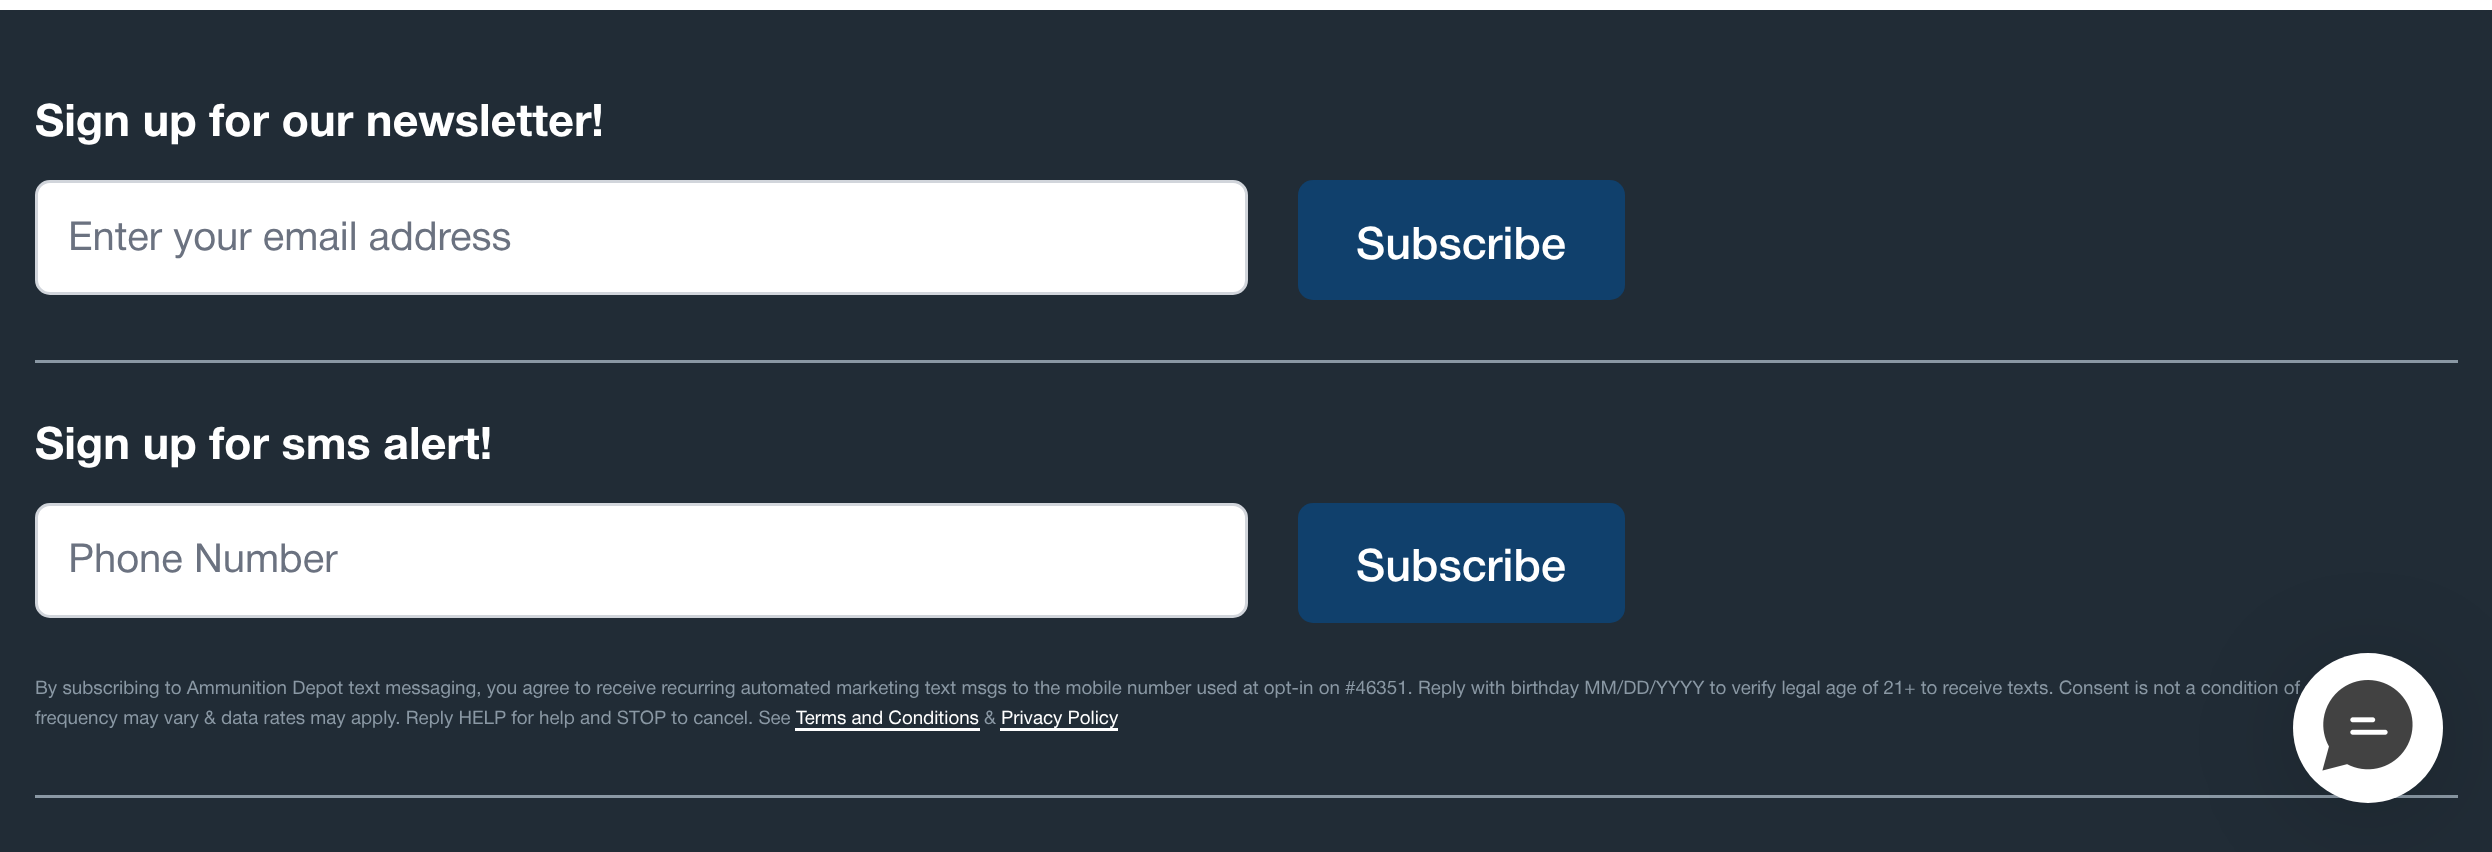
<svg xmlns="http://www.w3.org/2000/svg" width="2492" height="852">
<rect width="100%" height="100%" fill="#fff"/>
<rect y="10" width="2492" height="842" fill="#212c36"/>
<rect x="35" y="360" width="2423" height="3" fill="#8a98a4"/>
<text x="35" y="136" style="font-family:Helvetica Neue;font-size:45px;font-weight:bold;fill:#fff">Sign up for our newsletter!</text>
<rect x="36.5" y="181.5" width="1210" height="112" rx="13.5" fill="#fff" stroke="#d1d5db" stroke-width="3"/>
<text x="68" y="250" style="font-family:Helvetica Neue;font-size:40px;fill:#6b7280">Enter your email address</text>
<rect x="1298" y="180" width="327" height="120" rx="15" fill="#10406c"/>
<text x="1356" y="259" style="font-family:Helvetica Neue;font-size:45px;font-weight:500;fill:#fff">Subscribe</text>
<text x="35" y="459" style="font-family:Helvetica Neue;font-size:45px;font-weight:bold;fill:#fff">Sign up for sms alert!</text>
<rect x="36.5" y="504.5" width="1210" height="112" rx="13.5" fill="#fff" stroke="#d1d5db" stroke-width="3"/>
<text x="68" y="572" style="font-family:Helvetica Neue;font-size:40px;fill:#6b7280">Phone Number</text>
<rect x="1298" y="503" width="327" height="120" rx="15" fill="#10406c"/>
<text x="1356" y="581" style="font-family:Helvetica Neue;font-size:45px;font-weight:500;fill:#fff">Subscribe</text>
<text x="35" y="694" style="font-family:Helvetica Neue;font-size:18.75px;fill:#8a98a4">By subscribing to Ammunition Depot text messaging, you agree to receive recurring automated marketing text msgs to the mobile number used at opt-in on #46351. Reply with birthday MM/DD/YYYY to verify legal age of 21+ to receive texts. Consent is not a condition of</text>
<text x="35" y="724" style="font-family:Helvetica Neue;font-size:18.75px;fill:#8a98a4">frequency may vary &amp; data rates may apply. Reply HELP for help and STOP to cancel. See</text>
<text x="796" y="724" style="font-family:Helvetica Neue;font-size:18.75px;fill:#fff">Terms and Conditions</text>
<rect x="795" y="728" width="185" height="3" fill="#fff"/>
<text x="984" y="724" style="font-family:Helvetica Neue;font-size:18.75px;fill:#8a98a4">&amp;</text>
<text x="1001" y="724" style="font-family:Helvetica Neue;font-size:18.75px;fill:#fff">Privacy Policy</text>
<rect x="1000" y="728" width="118" height="3" fill="#fff"/>
<rect x="35" y="795" width="2423" height="3" fill="#8a98a4"/>
<rect x="2293" y="665" width="150" height="150" rx="75" fill="#00000029" filter="blur(50px)"/>
<circle cx="2368" cy="728" r="75" fill="#fff"/>
<image x="2322" y="680" width="91" height="91" href="media/1.png"/>
</svg>
